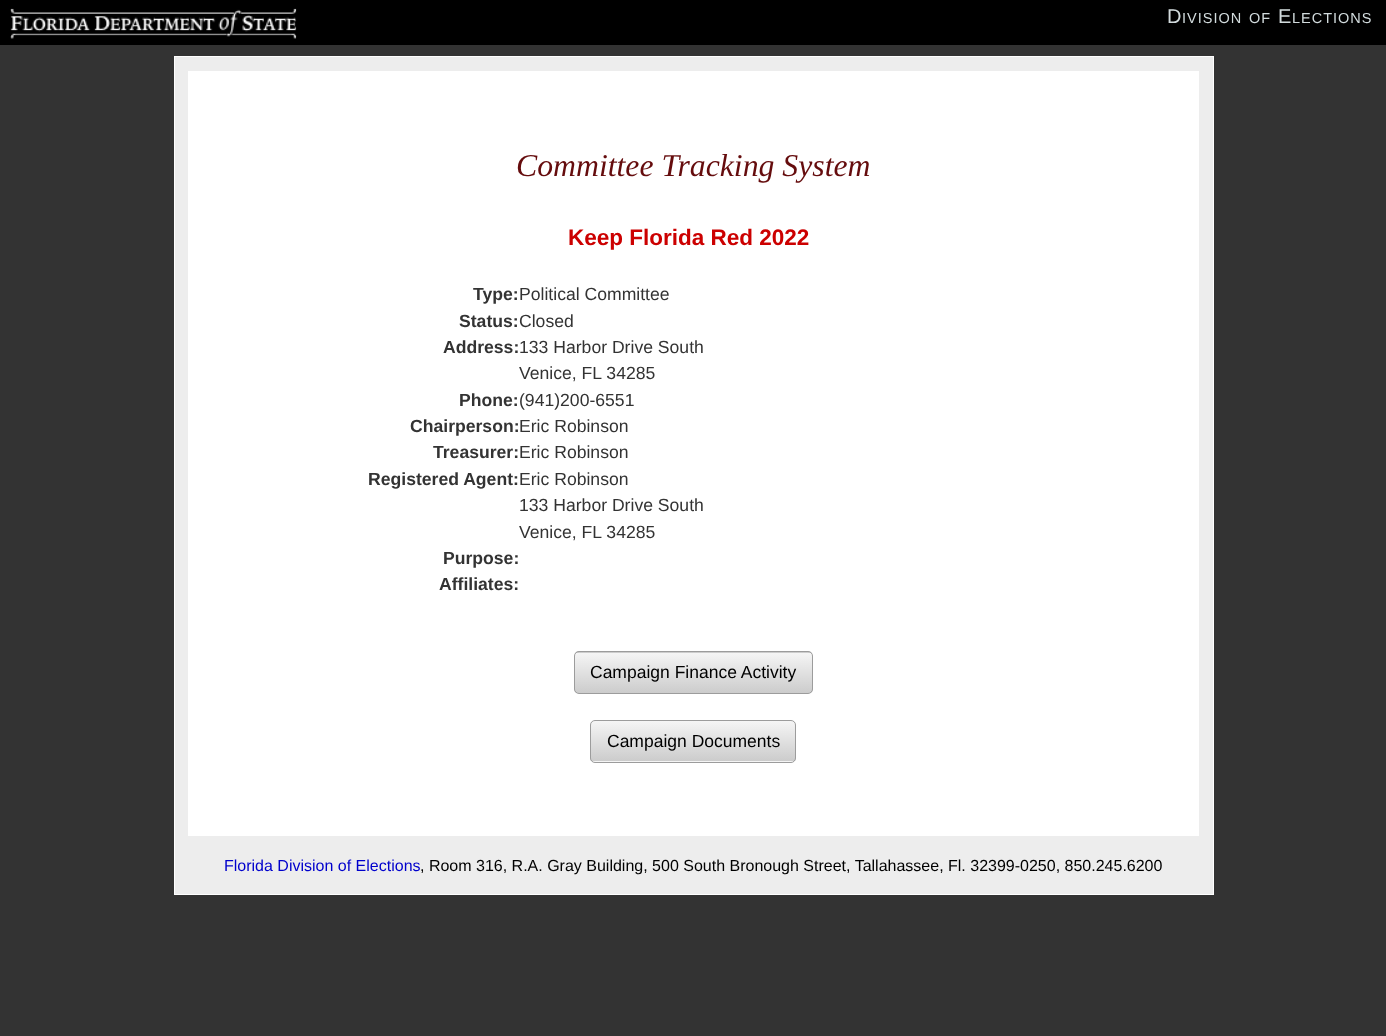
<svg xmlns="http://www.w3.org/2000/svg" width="1386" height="1036">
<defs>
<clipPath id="clip1"><rect x="574" y="651" width="239" height="43" rx="5"/></clipPath>
<linearGradient id="g1" gradientUnits="userSpaceOnUse" x1="693" y1="613" x2="693" y2="653"><stop offset="0" stop-color="#f5f5f5"/><stop offset="1" stop-color="#ccc"/></linearGradient>
<linearGradient id="g2" gradientUnits="userSpaceOnUse" x1="693" y1="653" x2="693" y2="693"><stop offset="0" stop-color="#f5f5f5"/><stop offset="1" stop-color="#ccc"/></linearGradient>
<clipPath id="clip2"><rect x="590" y="720" width="206" height="43" rx="5"/></clipPath>
<linearGradient id="g3" gradientUnits="userSpaceOnUse" x1="693" y1="721" x2="693" y2="761"><stop offset="0" stop-color="#f5f5f5"/><stop offset="1" stop-color="#ccc"/></linearGradient>
<linearGradient id="g4" gradientUnits="userSpaceOnUse" x1="693" y1="761" x2="693" y2="801"><stop offset="0" stop-color="#f5f5f5"/><stop offset="1" stop-color="#ccc"/></linearGradient>
</defs>
<rect width="100%" height="100%" fill="#333"/>
<rect x="174.5" y="56.5" width="1039" height="838" fill="#ededed" stroke="#fff"/>
<rect width="1386" height="45" fill="#000"/>
<image x="10" y="8" width="287" height="31" href="media/1.png"/>
<text x="1167" y="23" style="font-family:Liberation Sans;font-size:20px;letter-spacing:1px;fill:#d2dbdd">D</text>
<text x="1182" y="23" style="font-family:Liberation Sans;font-size:14.5px;letter-spacing:1px;fill:#d2dbdd">IVISION</text>
<text x="1249" y="23" style="font-family:Liberation Sans;font-size:14.5px;letter-spacing:1px;fill:#d2dbdd">OF</text>
<text x="1278" y="23" style="font-family:Liberation Sans;font-size:20px;letter-spacing:1px;fill:#d2dbdd">E</text>
<text x="1292" y="23" style="font-family:Liberation Sans;font-size:14.5px;letter-spacing:1px;fill:#d2dbdd">LECTIONS</text>
<text x="224" y="871" style="font-family:Liberation Sans;font-size:16px;fill:#00c">Florida Division of Elections</text>
<text x="420" y="871" style="font-family:Liberation Sans;font-size:16px;fill:#000">, Room 316, R.A. Gray Building, 500 South Bronough Street, Tallahassee, Fl. 32399-0250, 850.245.6200</text>
<rect x="188" y="71" width="1011" height="765" fill="#fff"/>
<text x="516" y="176" style="font-family:Liberation Serif;font-size:31.75px;font-style:italic;fill:#650c0d">Committee Tracking System</text>
<text x="568" y="245" style="font-family:Liberation Sans;font-size:22.5px;font-weight:bold;fill:#c00">Keep Florida Red 2022</text>
<text x="473" y="300" style="font-family:Liberation Sans;font-size:17.6px;font-weight:bold;fill:#333">Type:</text>
<text x="519" y="300" style="font-family:Liberation Sans;font-size:17.6px;fill:#333">Political Committee</text>
<text x="459" y="327" style="font-family:Liberation Sans;font-size:17.6px;font-weight:bold;fill:#333">Status:</text>
<text x="519" y="327" style="font-family:Liberation Sans;font-size:17.6px;fill:#333">Closed</text>
<text x="443" y="353" style="font-family:Liberation Sans;font-size:17.6px;font-weight:bold;fill:#333">Address:</text>
<text x="519" y="353" style="font-family:Liberation Sans;font-size:17.6px;fill:#333">133 Harbor Drive South</text>
<text x="519" y="379" style="font-family:Liberation Sans;font-size:17.6px;fill:#333">Venice, FL 34285</text>
<text x="459" y="406" style="font-family:Liberation Sans;font-size:17.6px;font-weight:bold;fill:#333">Phone:</text>
<text x="519" y="406" style="font-family:Liberation Sans;font-size:17.6px;fill:#333">(941)200-6551</text>
<text x="410" y="432" style="font-family:Liberation Sans;font-size:17.6px;font-weight:bold;fill:#333">Chairperson:</text>
<text x="519" y="432" style="font-family:Liberation Sans;font-size:17.6px;fill:#333">Eric Robinson</text>
<text x="433" y="458" style="font-family:Liberation Sans;font-size:17.6px;font-weight:bold;fill:#333">Treasurer:</text>
<text x="519" y="458" style="font-family:Liberation Sans;font-size:17.6px;fill:#333">Eric Robinson</text>
<text x="368" y="485" style="font-family:Liberation Sans;font-size:17.6px;font-weight:bold;fill:#333">Registered Agent:</text>
<text x="519" y="485" style="font-family:Liberation Sans;font-size:17.6px;fill:#333">Eric Robinson</text>
<text x="519" y="511" style="font-family:Liberation Sans;font-size:17.6px;fill:#333">133 Harbor Drive South</text>
<text x="519" y="538" style="font-family:Liberation Sans;font-size:17.6px;fill:#333">Venice, FL 34285</text>
<text x="443" y="564" style="font-family:Liberation Sans;font-size:17.6px;font-weight:bold;fill:#333">Purpose:</text>
<text x="439" y="590" style="font-family:Liberation Sans;font-size:17.6px;font-weight:bold;fill:#333">Affiliates:</text>
<g clip-path="url(#clip1)">
<rect x="574" y="651" width="239" height="2" fill="url(#g1)"/>
<rect x="574" y="653" width="239" height="40" fill="url(#g2)"/>
</g>
<rect x="574.5" y="651.5" width="238" height="42" rx="4.5" fill="none" stroke="#9c9c9c"/>
<text x="590" y="678" style="font-family:Liberation Sans;font-size:17.5px;fill:#000">Campaign Finance Activity</text>
<g clip-path="url(#clip2)">
<rect x="590" y="721" width="206" height="40" fill="url(#g3)"/>
<rect x="590" y="761" width="206" height="2" fill="url(#g4)"/>
</g>
<rect x="590.5" y="720.5" width="205" height="42" rx="4.5" fill="none" stroke="#9c9c9c"/>
<text x="607" y="747" style="font-family:Liberation Sans;font-size:17.5px;fill:#000">Campaign Documents</text>
</svg>
